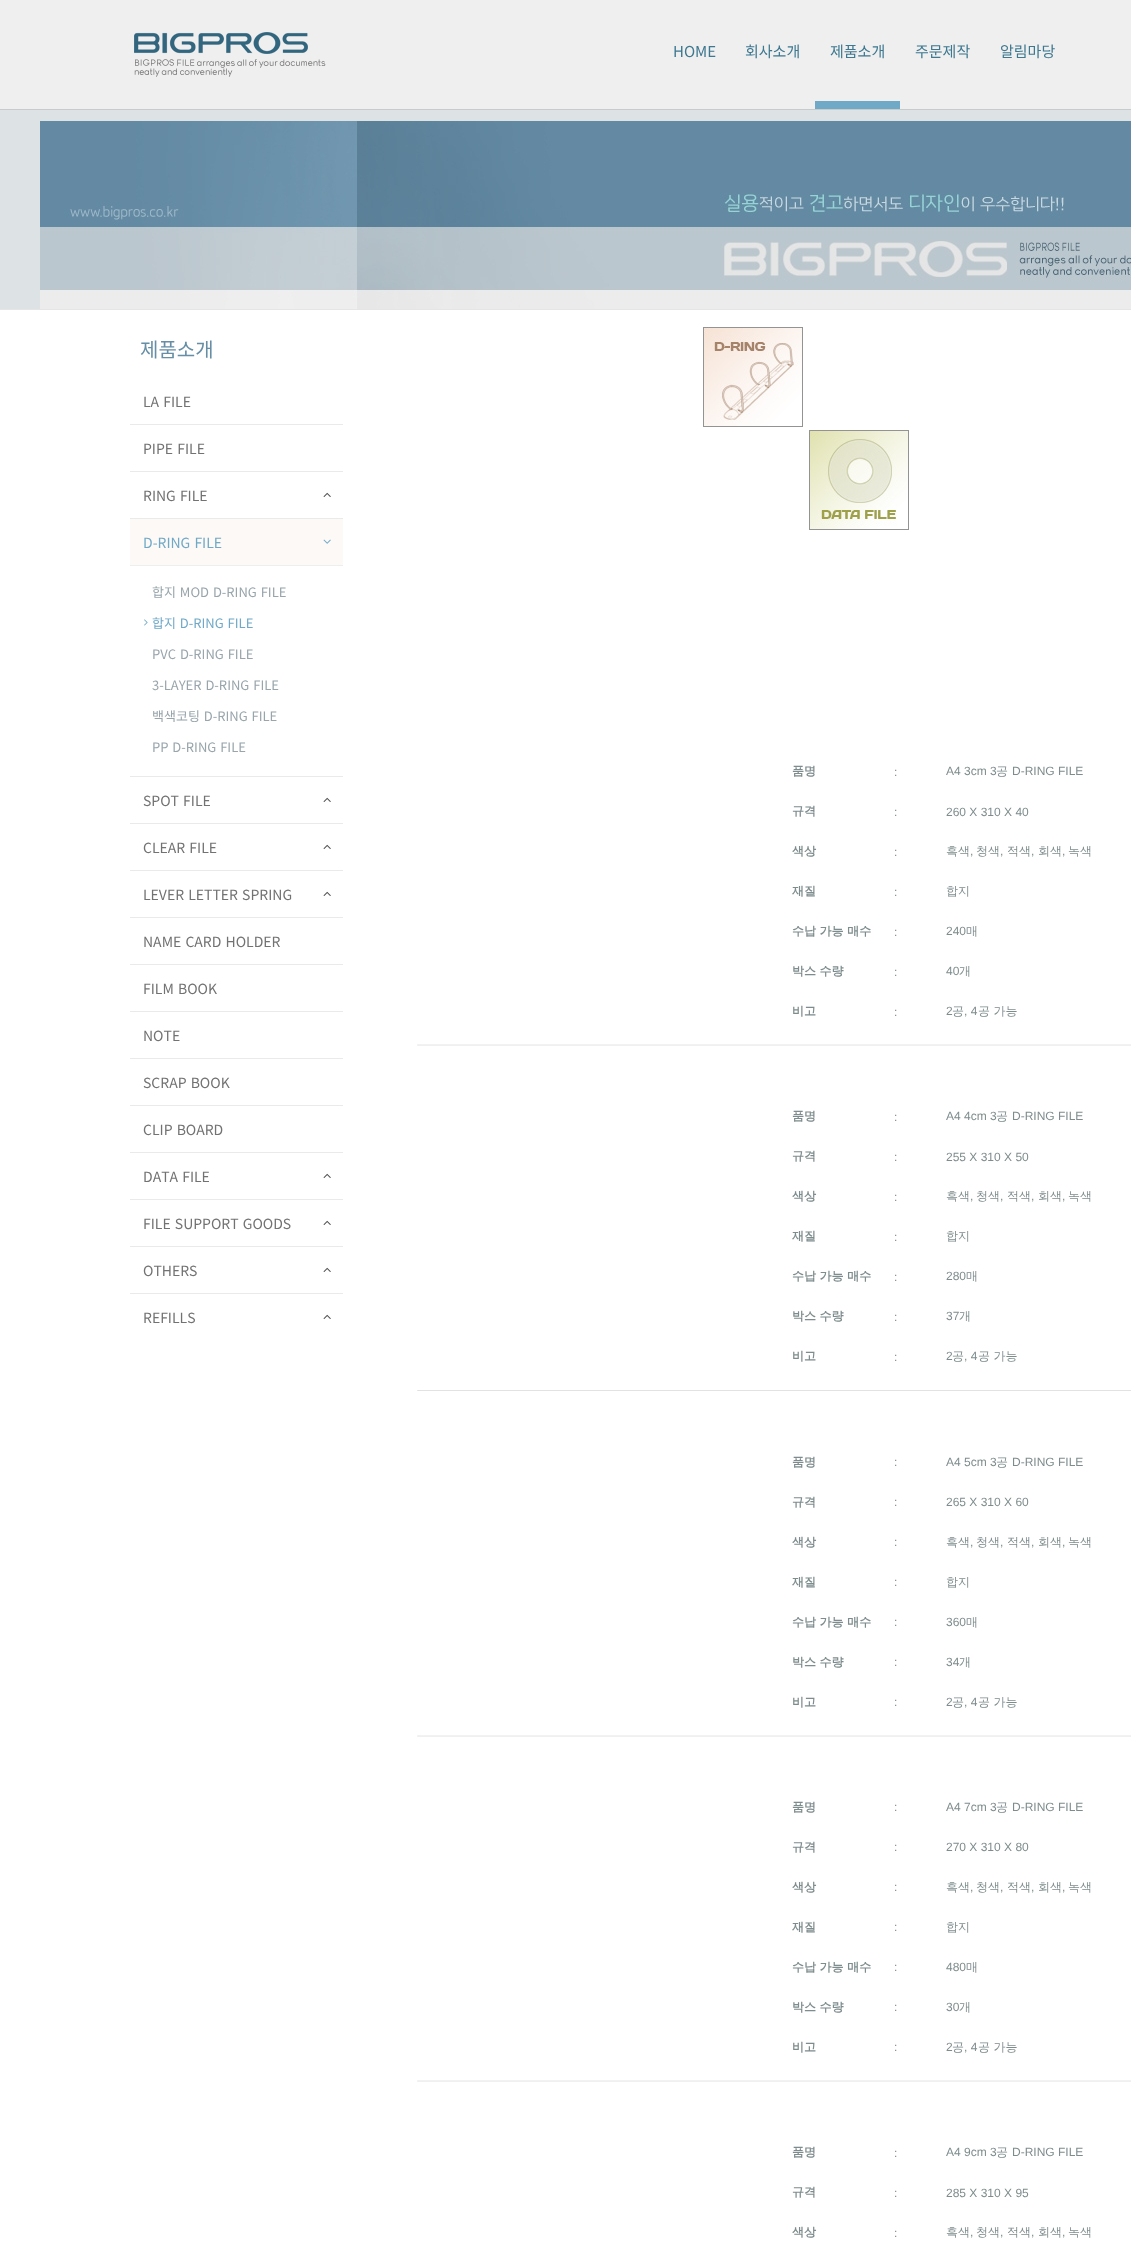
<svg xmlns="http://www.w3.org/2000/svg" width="1131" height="2250">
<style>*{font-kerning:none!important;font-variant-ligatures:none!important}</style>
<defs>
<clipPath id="clip1"><rect x="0" y="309" width="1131" height="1"/></clipPath>
</defs>
<rect width="100%" height="100%" fill="#dde2e4"/>
<rect y="1" width="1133" height="109" fill="#0000001a" filter="blur(0.5px)"/>
<rect y="309" width="1131" height="1941" fill="#fff"/>
<g clip-path="url(#clip1)">
<rect y="110" width="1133" height="200" fill="#0000001a" filter="blur(0.5px)"/>
</g>
<rect width="1131" height="109" fill="#efefef"/>
<image x="134" y="32" width="192" height="45" href="media/1.png"/>
<text x="673" y="57" style="font-family:Noto Sans KR;font-size:15px;font-weight:100;fill:#3d7890">HOME</text>
<text x="745" y="57" style="font-family:Noto Sans KR;font-size:15px;font-weight:100;fill:#3d7890">회사소개</text>
<rect x="815" y="101" width="85" height="8" fill="#70a9c7"/>
<text x="830" y="57" style="font-family:Noto Sans KR;font-size:15px;font-weight:100;fill:#3d7890">제품소개</text>
<text x="915" y="57" style="font-family:Noto Sans KR;font-size:15px;font-weight:100;fill:#3d7890">주문제작</text>
<text x="1000" y="57" style="font-family:Noto Sans KR;font-size:15px;font-weight:100;fill:#3d7890">알림마당</text>
<image x="40" y="121" width="1091" height="188" href="media/2.png"/>
<text x="140" y="357" style="font-family:Noto Sans KR;font-size:20px;font-weight:100;fill:#668fa6">제품소개</text>
<rect x="130" y="424" width="213" height="1" fill="#eaeaea"/>
<text x="143" y="407" word-spacing="1" style="font-family:Noto Sans KR;font-size:14px;font-weight:100;fill:#727272">LA FILE</text>
<rect x="130" y="471" width="213" height="1" fill="#eaeaea"/>
<text x="143" y="454" word-spacing="1" style="font-family:Noto Sans KR;font-size:14px;font-weight:100;fill:#727272">PIPE FILE</text>
<rect x="130" y="518" width="213" height="1" fill="#eaeaea"/>
<text x="143" y="501" word-spacing="1" style="font-family:Noto Sans KR;font-size:14px;font-weight:100;fill:#727272">RING FILE</text>
<image x="323" y="492" width="8" height="5" href="media/3.png"/>
<rect x="130" y="776" width="213" height="1" fill="#eaeaea"/>
<rect x="130" y="519" width="213" height="46" fill="#fcf9f6"/>
<text x="143" y="548" word-spacing="1" style="font-family:Noto Sans KR;font-size:14px;font-weight:100;fill:#70a9c7">D-RING FILE</text>
<image x="323" y="539" width="8" height="5" href="media/4.png"/>
<rect x="130" y="565" width="213" height="1" fill="#eee"/>
<text x="152" y="597" word-spacing="1" style="font-family:Noto Sans KR;font-size:13px;font-weight:100;fill:#98a5ab">합지 MOD D-RING FILE</text>
<image x="144" y="619" width="4" height="7" href="media/5.png"/>
<text x="152" y="628" word-spacing="1" style="font-family:Noto Sans KR;font-size:13px;font-weight:100;fill:#70a9c7">합지 D-RING FILE</text>
<text x="152" y="659" word-spacing="1" style="font-family:Noto Sans KR;font-size:13px;font-weight:100;fill:#98a5ab">PVC D-RING FILE</text>
<text x="152" y="690" word-spacing="1" style="font-family:Noto Sans KR;font-size:13px;font-weight:100;fill:#98a5ab">3-LAYER D-RING FILE</text>
<text x="152" y="721" word-spacing="1" style="font-family:Noto Sans KR;font-size:13px;font-weight:100;fill:#98a5ab">백색코팅 D-RING FILE</text>
<text x="152" y="752" word-spacing="1" style="font-family:Noto Sans KR;font-size:13px;font-weight:100;fill:#98a5ab">PP D-RING FILE</text>
<rect x="130" y="823" width="213" height="1" fill="#eaeaea"/>
<text x="143" y="806" word-spacing="1" style="font-family:Noto Sans KR;font-size:14px;font-weight:100;fill:#727272">SPOT FILE</text>
<image x="323" y="797" width="8" height="5" href="media/3.png"/>
<rect x="130" y="870" width="213" height="1" fill="#eaeaea"/>
<text x="143" y="853" word-spacing="1" style="font-family:Noto Sans KR;font-size:14px;font-weight:100;fill:#727272">CLEAR FILE</text>
<image x="323" y="844" width="8" height="5" href="media/3.png"/>
<rect x="130" y="917" width="213" height="1" fill="#eaeaea"/>
<text x="143" y="900" word-spacing="1" style="font-family:Noto Sans KR;font-size:14px;font-weight:100;fill:#727272">LEVER LETTER SPRING</text>
<image x="323" y="891" width="8" height="5" href="media/3.png"/>
<rect x="130" y="964" width="213" height="1" fill="#eaeaea"/>
<text x="143" y="947" word-spacing="1" style="font-family:Noto Sans KR;font-size:14px;font-weight:100;fill:#727272">NAME CARD HOLDER</text>
<rect x="130" y="1011" width="213" height="1" fill="#eaeaea"/>
<text x="143" y="994" word-spacing="1" style="font-family:Noto Sans KR;font-size:14px;font-weight:100;fill:#727272">FILM BOOK</text>
<rect x="130" y="1058" width="213" height="1" fill="#eaeaea"/>
<text x="143" y="1041" style="font-family:Noto Sans KR;font-size:14px;font-weight:100;fill:#727272">NOTE</text>
<rect x="130" y="1105" width="213" height="1" fill="#eaeaea"/>
<text x="143" y="1088" word-spacing="1" style="font-family:Noto Sans KR;font-size:14px;font-weight:100;fill:#727272">SCRAP BOOK</text>
<rect x="130" y="1152" width="213" height="1" fill="#eaeaea"/>
<text x="143" y="1135" word-spacing="1" style="font-family:Noto Sans KR;font-size:14px;font-weight:100;fill:#727272">CLIP BOARD</text>
<rect x="130" y="1199" width="213" height="1" fill="#eaeaea"/>
<text x="143" y="1182" word-spacing="1" style="font-family:Noto Sans KR;font-size:14px;font-weight:100;fill:#727272">DATA FILE</text>
<image x="323" y="1173" width="8" height="5" href="media/3.png"/>
<rect x="130" y="1246" width="213" height="1" fill="#eaeaea"/>
<text x="143" y="1229" word-spacing="1" style="font-family:Noto Sans KR;font-size:14px;font-weight:100;fill:#727272">FILE SUPPORT GOODS</text>
<image x="323" y="1220" width="8" height="5" href="media/3.png"/>
<rect x="130" y="1293" width="213" height="1" fill="#eaeaea"/>
<text x="143" y="1276" style="font-family:Noto Sans KR;font-size:14px;font-weight:100;fill:#727272">OTHERS</text>
<image x="323" y="1267" width="8" height="5" href="media/3.png"/>
<text x="143" y="1323" style="font-family:Noto Sans KR;font-size:14px;font-weight:100;fill:#727272">REFILLS</text>
<image x="323" y="1314" width="8" height="5" href="media/3.png"/>
<image x="703" y="327" width="100" height="100" href="media/6.png"/>
<image x="809" y="430" width="100" height="100" href="media/7.png"/>
<text x="792" y="775" style="font-family:WenQuanYi Zen Hei;font-size:12px;font-weight:bold;fill:#7f8c8d">품명</text>
<text x="894" y="776" style="font-family:Liberation Sans;font-size:12px;fill:#7f8c8d">:</text>
<text x="946" y="775" style="font-family:Liberation Sans;font-size:12px;fill:#7f8c8d">A4 3cm 3</text>
<text x="996" y="775" style="font-family:WenQuanYi Zen Hei;font-size:12px;font-weight:500;fill:#7f8c8d">공</text>
<text x="1012" y="775" style="font-family:Liberation Sans;font-size:12px;fill:#7f8c8d">D-RING FILE</text>
<text x="792" y="815" style="font-family:WenQuanYi Zen Hei;font-size:12px;font-weight:bold;fill:#7f8c8d">규격</text>
<text x="894" y="816" style="font-family:Liberation Sans;font-size:12px;fill:#7f8c8d">:</text>
<text x="946" y="816" style="font-family:Liberation Sans;font-size:12px;fill:#7f8c8d">260 X 310 X 40</text>
<text x="792" y="855" style="font-family:WenQuanYi Zen Hei;font-size:12px;font-weight:bold;fill:#7f8c8d">색상</text>
<text x="894" y="856" style="font-family:Liberation Sans;font-size:12px;fill:#7f8c8d">:</text>
<text x="946" y="855" style="font-family:WenQuanYi Zen Hei;font-size:12px;font-weight:500;fill:#7f8c8d">흑색</text>
<text x="970" y="855" style="font-family:Liberation Sans;font-size:12px;fill:#7f8c8d">,</text>
<text x="976" y="855" style="font-family:WenQuanYi Zen Hei;font-size:12px;font-weight:500;fill:#7f8c8d">청색</text>
<text x="1000" y="855" style="font-family:Liberation Sans;font-size:12px;fill:#7f8c8d">,</text>
<text x="1007" y="855" style="font-family:WenQuanYi Zen Hei;font-size:12px;font-weight:500;fill:#7f8c8d">적색</text>
<text x="1031" y="855" style="font-family:Liberation Sans;font-size:12px;fill:#7f8c8d">,</text>
<text x="1038" y="855" style="font-family:WenQuanYi Zen Hei;font-size:12px;font-weight:500;fill:#7f8c8d">회색</text>
<text x="1062" y="855" style="font-family:Liberation Sans;font-size:12px;fill:#7f8c8d">,</text>
<text x="1068" y="855" style="font-family:WenQuanYi Zen Hei;font-size:12px;font-weight:500;fill:#7f8c8d">녹색</text>
<text x="792" y="895" style="font-family:WenQuanYi Zen Hei;font-size:12px;font-weight:bold;fill:#7f8c8d">재질</text>
<text x="894" y="896" style="font-family:Liberation Sans;font-size:12px;fill:#7f8c8d">:</text>
<text x="946" y="895" style="font-family:WenQuanYi Zen Hei;font-size:12px;font-weight:500;fill:#7f8c8d">합지</text>
<text x="792" y="935" style="font-family:WenQuanYi Zen Hei;font-size:12px;font-weight:bold;fill:#7f8c8d">수납 가능 매수</text>
<text x="894" y="936" style="font-family:Liberation Sans;font-size:12px;fill:#7f8c8d">:</text>
<text x="946" y="935" style="font-family:Liberation Sans;font-size:12px;fill:#7f8c8d">240</text>
<text x="966" y="935" style="font-family:WenQuanYi Zen Hei;font-size:12px;font-weight:500;fill:#7f8c8d">매</text>
<text x="792" y="975" style="font-family:WenQuanYi Zen Hei;font-size:12px;font-weight:bold;fill:#7f8c8d">박스 수량</text>
<text x="894" y="976" style="font-family:Liberation Sans;font-size:12px;fill:#7f8c8d">:</text>
<text x="946" y="975" style="font-family:Liberation Sans;font-size:12px;fill:#7f8c8d">40</text>
<text x="959" y="975" style="font-family:WenQuanYi Zen Hei;font-size:12px;font-weight:500;fill:#7f8c8d">개</text>
<text x="792" y="1015" style="font-family:WenQuanYi Zen Hei;font-size:12px;font-weight:bold;fill:#7f8c8d">비고</text>
<text x="894" y="1016" style="font-family:Liberation Sans;font-size:12px;fill:#7f8c8d">:</text>
<text x="946" y="1015" style="font-family:Liberation Sans;font-size:12px;fill:#7f8c8d">2</text>
<text x="952" y="1015" style="font-family:WenQuanYi Zen Hei;font-size:12px;font-weight:500;fill:#7f8c8d">공</text>
<text x="964" y="1015" style="font-family:Liberation Sans;font-size:12px;fill:#7f8c8d">, 4</text>
<text x="978" y="1015" style="font-family:WenQuanYi Zen Hei;font-size:12px;font-weight:500;fill:#7f8c8d">공 가능</text>
<image x="417" y="1044" width="714" height="2" href="media/8.png"/>
<text x="792" y="1120" style="font-family:WenQuanYi Zen Hei;font-size:12px;font-weight:bold;fill:#7f8c8d">품명</text>
<text x="894" y="1121" style="font-family:Liberation Sans;font-size:12px;fill:#7f8c8d">:</text>
<text x="946" y="1120" style="font-family:Liberation Sans;font-size:12px;fill:#7f8c8d">A4 4cm 3</text>
<text x="996" y="1120" style="font-family:WenQuanYi Zen Hei;font-size:12px;font-weight:500;fill:#7f8c8d">공</text>
<text x="1012" y="1120" style="font-family:Liberation Sans;font-size:12px;fill:#7f8c8d">D-RING FILE</text>
<text x="792" y="1160" style="font-family:WenQuanYi Zen Hei;font-size:12px;font-weight:bold;fill:#7f8c8d">규격</text>
<text x="894" y="1161" style="font-family:Liberation Sans;font-size:12px;fill:#7f8c8d">:</text>
<text x="946" y="1161" style="font-family:Liberation Sans;font-size:12px;fill:#7f8c8d">255 X 310 X 50</text>
<text x="792" y="1200" style="font-family:WenQuanYi Zen Hei;font-size:12px;font-weight:bold;fill:#7f8c8d">색상</text>
<text x="894" y="1201" style="font-family:Liberation Sans;font-size:12px;fill:#7f8c8d">:</text>
<text x="946" y="1200" style="font-family:WenQuanYi Zen Hei;font-size:12px;font-weight:500;fill:#7f8c8d">흑색</text>
<text x="970" y="1200" style="font-family:Liberation Sans;font-size:12px;fill:#7f8c8d">,</text>
<text x="976" y="1200" style="font-family:WenQuanYi Zen Hei;font-size:12px;font-weight:500;fill:#7f8c8d">청색</text>
<text x="1000" y="1200" style="font-family:Liberation Sans;font-size:12px;fill:#7f8c8d">,</text>
<text x="1007" y="1200" style="font-family:WenQuanYi Zen Hei;font-size:12px;font-weight:500;fill:#7f8c8d">적색</text>
<text x="1031" y="1200" style="font-family:Liberation Sans;font-size:12px;fill:#7f8c8d">,</text>
<text x="1038" y="1200" style="font-family:WenQuanYi Zen Hei;font-size:12px;font-weight:500;fill:#7f8c8d">회색</text>
<text x="1062" y="1200" style="font-family:Liberation Sans;font-size:12px;fill:#7f8c8d">,</text>
<text x="1068" y="1200" style="font-family:WenQuanYi Zen Hei;font-size:12px;font-weight:500;fill:#7f8c8d">녹색</text>
<text x="792" y="1240" style="font-family:WenQuanYi Zen Hei;font-size:12px;font-weight:bold;fill:#7f8c8d">재질</text>
<text x="894" y="1241" style="font-family:Liberation Sans;font-size:12px;fill:#7f8c8d">:</text>
<text x="946" y="1240" style="font-family:WenQuanYi Zen Hei;font-size:12px;font-weight:500;fill:#7f8c8d">합지</text>
<text x="792" y="1280" style="font-family:WenQuanYi Zen Hei;font-size:12px;font-weight:bold;fill:#7f8c8d">수납 가능 매수</text>
<text x="894" y="1281" style="font-family:Liberation Sans;font-size:12px;fill:#7f8c8d">:</text>
<text x="946" y="1280" style="font-family:Liberation Sans;font-size:12px;fill:#7f8c8d">280</text>
<text x="966" y="1280" style="font-family:WenQuanYi Zen Hei;font-size:12px;font-weight:500;fill:#7f8c8d">매</text>
<text x="792" y="1320" style="font-family:WenQuanYi Zen Hei;font-size:12px;font-weight:bold;fill:#7f8c8d">박스 수량</text>
<text x="894" y="1321" style="font-family:Liberation Sans;font-size:12px;fill:#7f8c8d">:</text>
<text x="946" y="1320" style="font-family:Liberation Sans;font-size:12px;fill:#7f8c8d">37</text>
<text x="959" y="1320" style="font-family:WenQuanYi Zen Hei;font-size:12px;font-weight:500;fill:#7f8c8d">개</text>
<text x="792" y="1360" style="font-family:WenQuanYi Zen Hei;font-size:12px;font-weight:bold;fill:#7f8c8d">비고</text>
<text x="894" y="1361" style="font-family:Liberation Sans;font-size:12px;fill:#7f8c8d">:</text>
<text x="946" y="1360" style="font-family:Liberation Sans;font-size:12px;fill:#7f8c8d">2</text>
<text x="952" y="1360" style="font-family:WenQuanYi Zen Hei;font-size:12px;font-weight:500;fill:#7f8c8d">공</text>
<text x="964" y="1360" style="font-family:Liberation Sans;font-size:12px;fill:#7f8c8d">, 4</text>
<text x="978" y="1360" style="font-family:WenQuanYi Zen Hei;font-size:12px;font-weight:500;fill:#7f8c8d">공 가능</text>
<image x="417" y="1390" width="714" height="1" href="media/9.png"/>
<text x="792" y="1466" style="font-family:WenQuanYi Zen Hei;font-size:12px;font-weight:bold;fill:#7f8c8d">품명</text>
<text x="894" y="1466" style="font-family:Liberation Sans;font-size:12px;fill:#7f8c8d">:</text>
<text x="946" y="1466" style="font-family:Liberation Sans;font-size:12px;fill:#7f8c8d">A4 5cm 3</text>
<text x="996" y="1466" style="font-family:WenQuanYi Zen Hei;font-size:12px;font-weight:500;fill:#7f8c8d">공</text>
<text x="1012" y="1466" style="font-family:Liberation Sans;font-size:12px;fill:#7f8c8d">D-RING FILE</text>
<text x="792" y="1506" style="font-family:WenQuanYi Zen Hei;font-size:12px;font-weight:bold;fill:#7f8c8d">규격</text>
<text x="894" y="1506" style="font-family:Liberation Sans;font-size:12px;fill:#7f8c8d">:</text>
<text x="946" y="1506" style="font-family:Liberation Sans;font-size:12px;fill:#7f8c8d">265 X 310 X 60</text>
<text x="792" y="1546" style="font-family:WenQuanYi Zen Hei;font-size:12px;font-weight:bold;fill:#7f8c8d">색상</text>
<text x="894" y="1546" style="font-family:Liberation Sans;font-size:12px;fill:#7f8c8d">:</text>
<text x="946" y="1546" style="font-family:WenQuanYi Zen Hei;font-size:12px;font-weight:500;fill:#7f8c8d">흑색</text>
<text x="970" y="1546" style="font-family:Liberation Sans;font-size:12px;fill:#7f8c8d">,</text>
<text x="976" y="1546" style="font-family:WenQuanYi Zen Hei;font-size:12px;font-weight:500;fill:#7f8c8d">청색</text>
<text x="1000" y="1546" style="font-family:Liberation Sans;font-size:12px;fill:#7f8c8d">,</text>
<text x="1007" y="1546" style="font-family:WenQuanYi Zen Hei;font-size:12px;font-weight:500;fill:#7f8c8d">적색</text>
<text x="1031" y="1546" style="font-family:Liberation Sans;font-size:12px;fill:#7f8c8d">,</text>
<text x="1038" y="1546" style="font-family:WenQuanYi Zen Hei;font-size:12px;font-weight:500;fill:#7f8c8d">회색</text>
<text x="1062" y="1546" style="font-family:Liberation Sans;font-size:12px;fill:#7f8c8d">,</text>
<text x="1068" y="1546" style="font-family:WenQuanYi Zen Hei;font-size:12px;font-weight:500;fill:#7f8c8d">녹색</text>
<text x="792" y="1586" style="font-family:WenQuanYi Zen Hei;font-size:12px;font-weight:bold;fill:#7f8c8d">재질</text>
<text x="894" y="1586" style="font-family:Liberation Sans;font-size:12px;fill:#7f8c8d">:</text>
<text x="946" y="1586" style="font-family:WenQuanYi Zen Hei;font-size:12px;font-weight:500;fill:#7f8c8d">합지</text>
<text x="792" y="1626" style="font-family:WenQuanYi Zen Hei;font-size:12px;font-weight:bold;fill:#7f8c8d">수납 가능 매수</text>
<text x="894" y="1626" style="font-family:Liberation Sans;font-size:12px;fill:#7f8c8d">:</text>
<text x="946" y="1626" style="font-family:Liberation Sans;font-size:12px;fill:#7f8c8d">360</text>
<text x="966" y="1626" style="font-family:WenQuanYi Zen Hei;font-size:12px;font-weight:500;fill:#7f8c8d">매</text>
<text x="792" y="1666" style="font-family:WenQuanYi Zen Hei;font-size:12px;font-weight:bold;fill:#7f8c8d">박스 수량</text>
<text x="894" y="1666" style="font-family:Liberation Sans;font-size:12px;fill:#7f8c8d">:</text>
<text x="946" y="1666" style="font-family:Liberation Sans;font-size:12px;fill:#7f8c8d">34</text>
<text x="959" y="1666" style="font-family:WenQuanYi Zen Hei;font-size:12px;font-weight:500;fill:#7f8c8d">개</text>
<text x="792" y="1706" style="font-family:WenQuanYi Zen Hei;font-size:12px;font-weight:bold;fill:#7f8c8d">비고</text>
<text x="894" y="1706" style="font-family:Liberation Sans;font-size:12px;fill:#7f8c8d">:</text>
<text x="946" y="1706" style="font-family:Liberation Sans;font-size:12px;fill:#7f8c8d">2</text>
<text x="952" y="1706" style="font-family:WenQuanYi Zen Hei;font-size:12px;font-weight:500;fill:#7f8c8d">공</text>
<text x="964" y="1706" style="font-family:Liberation Sans;font-size:12px;fill:#7f8c8d">, 4</text>
<text x="978" y="1706" style="font-family:WenQuanYi Zen Hei;font-size:12px;font-weight:500;fill:#7f8c8d">공 가능</text>
<image x="417" y="1735" width="714" height="2" href="media/8.png"/>
<text x="792" y="1811" style="font-family:WenQuanYi Zen Hei;font-size:12px;font-weight:bold;fill:#7f8c8d">품명</text>
<text x="894" y="1811" style="font-family:Liberation Sans;font-size:12px;fill:#7f8c8d">:</text>
<text x="946" y="1811" style="font-family:Liberation Sans;font-size:12px;fill:#7f8c8d">A4 7cm 3</text>
<text x="996" y="1811" style="font-family:WenQuanYi Zen Hei;font-size:12px;font-weight:500;fill:#7f8c8d">공</text>
<text x="1012" y="1811" style="font-family:Liberation Sans;font-size:12px;fill:#7f8c8d">D-RING FILE</text>
<text x="792" y="1851" style="font-family:WenQuanYi Zen Hei;font-size:12px;font-weight:bold;fill:#7f8c8d">규격</text>
<text x="894" y="1851" style="font-family:Liberation Sans;font-size:12px;fill:#7f8c8d">:</text>
<text x="946" y="1851" style="font-family:Liberation Sans;font-size:12px;fill:#7f8c8d">270 X 310 X 80</text>
<text x="792" y="1891" style="font-family:WenQuanYi Zen Hei;font-size:12px;font-weight:bold;fill:#7f8c8d">색상</text>
<text x="894" y="1891" style="font-family:Liberation Sans;font-size:12px;fill:#7f8c8d">:</text>
<text x="946" y="1891" style="font-family:WenQuanYi Zen Hei;font-size:12px;font-weight:500;fill:#7f8c8d">흑색</text>
<text x="970" y="1891" style="font-family:Liberation Sans;font-size:12px;fill:#7f8c8d">,</text>
<text x="976" y="1891" style="font-family:WenQuanYi Zen Hei;font-size:12px;font-weight:500;fill:#7f8c8d">청색</text>
<text x="1000" y="1891" style="font-family:Liberation Sans;font-size:12px;fill:#7f8c8d">,</text>
<text x="1007" y="1891" style="font-family:WenQuanYi Zen Hei;font-size:12px;font-weight:500;fill:#7f8c8d">적색</text>
<text x="1031" y="1891" style="font-family:Liberation Sans;font-size:12px;fill:#7f8c8d">,</text>
<text x="1038" y="1891" style="font-family:WenQuanYi Zen Hei;font-size:12px;font-weight:500;fill:#7f8c8d">회색</text>
<text x="1062" y="1891" style="font-family:Liberation Sans;font-size:12px;fill:#7f8c8d">,</text>
<text x="1068" y="1891" style="font-family:WenQuanYi Zen Hei;font-size:12px;font-weight:500;fill:#7f8c8d">녹색</text>
<text x="792" y="1931" style="font-family:WenQuanYi Zen Hei;font-size:12px;font-weight:bold;fill:#7f8c8d">재질</text>
<text x="894" y="1931" style="font-family:Liberation Sans;font-size:12px;fill:#7f8c8d">:</text>
<text x="946" y="1931" style="font-family:WenQuanYi Zen Hei;font-size:12px;font-weight:500;fill:#7f8c8d">합지</text>
<text x="792" y="1971" style="font-family:WenQuanYi Zen Hei;font-size:12px;font-weight:bold;fill:#7f8c8d">수납 가능 매수</text>
<text x="894" y="1971" style="font-family:Liberation Sans;font-size:12px;fill:#7f8c8d">:</text>
<text x="946" y="1971" style="font-family:Liberation Sans;font-size:12px;fill:#7f8c8d">480</text>
<text x="966" y="1971" style="font-family:WenQuanYi Zen Hei;font-size:12px;font-weight:500;fill:#7f8c8d">매</text>
<text x="792" y="2011" style="font-family:WenQuanYi Zen Hei;font-size:12px;font-weight:bold;fill:#7f8c8d">박스 수량</text>
<text x="894" y="2011" style="font-family:Liberation Sans;font-size:12px;fill:#7f8c8d">:</text>
<text x="946" y="2011" style="font-family:Liberation Sans;font-size:12px;fill:#7f8c8d">30</text>
<text x="959" y="2011" style="font-family:WenQuanYi Zen Hei;font-size:12px;font-weight:500;fill:#7f8c8d">개</text>
<text x="792" y="2051" style="font-family:WenQuanYi Zen Hei;font-size:12px;font-weight:bold;fill:#7f8c8d">비고</text>
<text x="894" y="2051" style="font-family:Liberation Sans;font-size:12px;fill:#7f8c8d">:</text>
<text x="946" y="2051" style="font-family:Liberation Sans;font-size:12px;fill:#7f8c8d">2</text>
<text x="952" y="2051" style="font-family:WenQuanYi Zen Hei;font-size:12px;font-weight:500;fill:#7f8c8d">공</text>
<text x="964" y="2051" style="font-family:Liberation Sans;font-size:12px;fill:#7f8c8d">, 4</text>
<text x="978" y="2051" style="font-family:WenQuanYi Zen Hei;font-size:12px;font-weight:500;fill:#7f8c8d">공 가능</text>
<image x="417" y="2080" width="714" height="2" href="media/8.png"/>
<text x="792" y="2156" style="font-family:WenQuanYi Zen Hei;font-size:12px;font-weight:bold;fill:#7f8c8d">품명</text>
<text x="894" y="2157" style="font-family:Liberation Sans;font-size:12px;fill:#7f8c8d">:</text>
<text x="946" y="2156" style="font-family:Liberation Sans;font-size:12px;fill:#7f8c8d">A4 9cm 3</text>
<text x="996" y="2156" style="font-family:WenQuanYi Zen Hei;font-size:12px;font-weight:500;fill:#7f8c8d">공</text>
<text x="1012" y="2156" style="font-family:Liberation Sans;font-size:12px;fill:#7f8c8d">D-RING FILE</text>
<text x="792" y="2196" style="font-family:WenQuanYi Zen Hei;font-size:12px;font-weight:bold;fill:#7f8c8d">규격</text>
<text x="894" y="2197" style="font-family:Liberation Sans;font-size:12px;fill:#7f8c8d">:</text>
<text x="946" y="2197" style="font-family:Liberation Sans;font-size:12px;fill:#7f8c8d">285 X 310 X 95</text>
<text x="792" y="2236" style="font-family:WenQuanYi Zen Hei;font-size:12px;font-weight:bold;fill:#7f8c8d">색상</text>
<text x="894" y="2237" style="font-family:Liberation Sans;font-size:12px;fill:#7f8c8d">:</text>
<text x="946" y="2236" style="font-family:WenQuanYi Zen Hei;font-size:12px;font-weight:500;fill:#7f8c8d">흑색</text>
<text x="970" y="2236" style="font-family:Liberation Sans;font-size:12px;fill:#7f8c8d">,</text>
<text x="976" y="2236" style="font-family:WenQuanYi Zen Hei;font-size:12px;font-weight:500;fill:#7f8c8d">청색</text>
<text x="1000" y="2236" style="font-family:Liberation Sans;font-size:12px;fill:#7f8c8d">,</text>
<text x="1007" y="2236" style="font-family:WenQuanYi Zen Hei;font-size:12px;font-weight:500;fill:#7f8c8d">적색</text>
<text x="1031" y="2236" style="font-family:Liberation Sans;font-size:12px;fill:#7f8c8d">,</text>
<text x="1038" y="2236" style="font-family:WenQuanYi Zen Hei;font-size:12px;font-weight:500;fill:#7f8c8d">회색</text>
<text x="1062" y="2236" style="font-family:Liberation Sans;font-size:12px;fill:#7f8c8d">,</text>
<text x="1068" y="2236" style="font-family:WenQuanYi Zen Hei;font-size:12px;font-weight:500;fill:#7f8c8d">녹색</text>
</svg>
